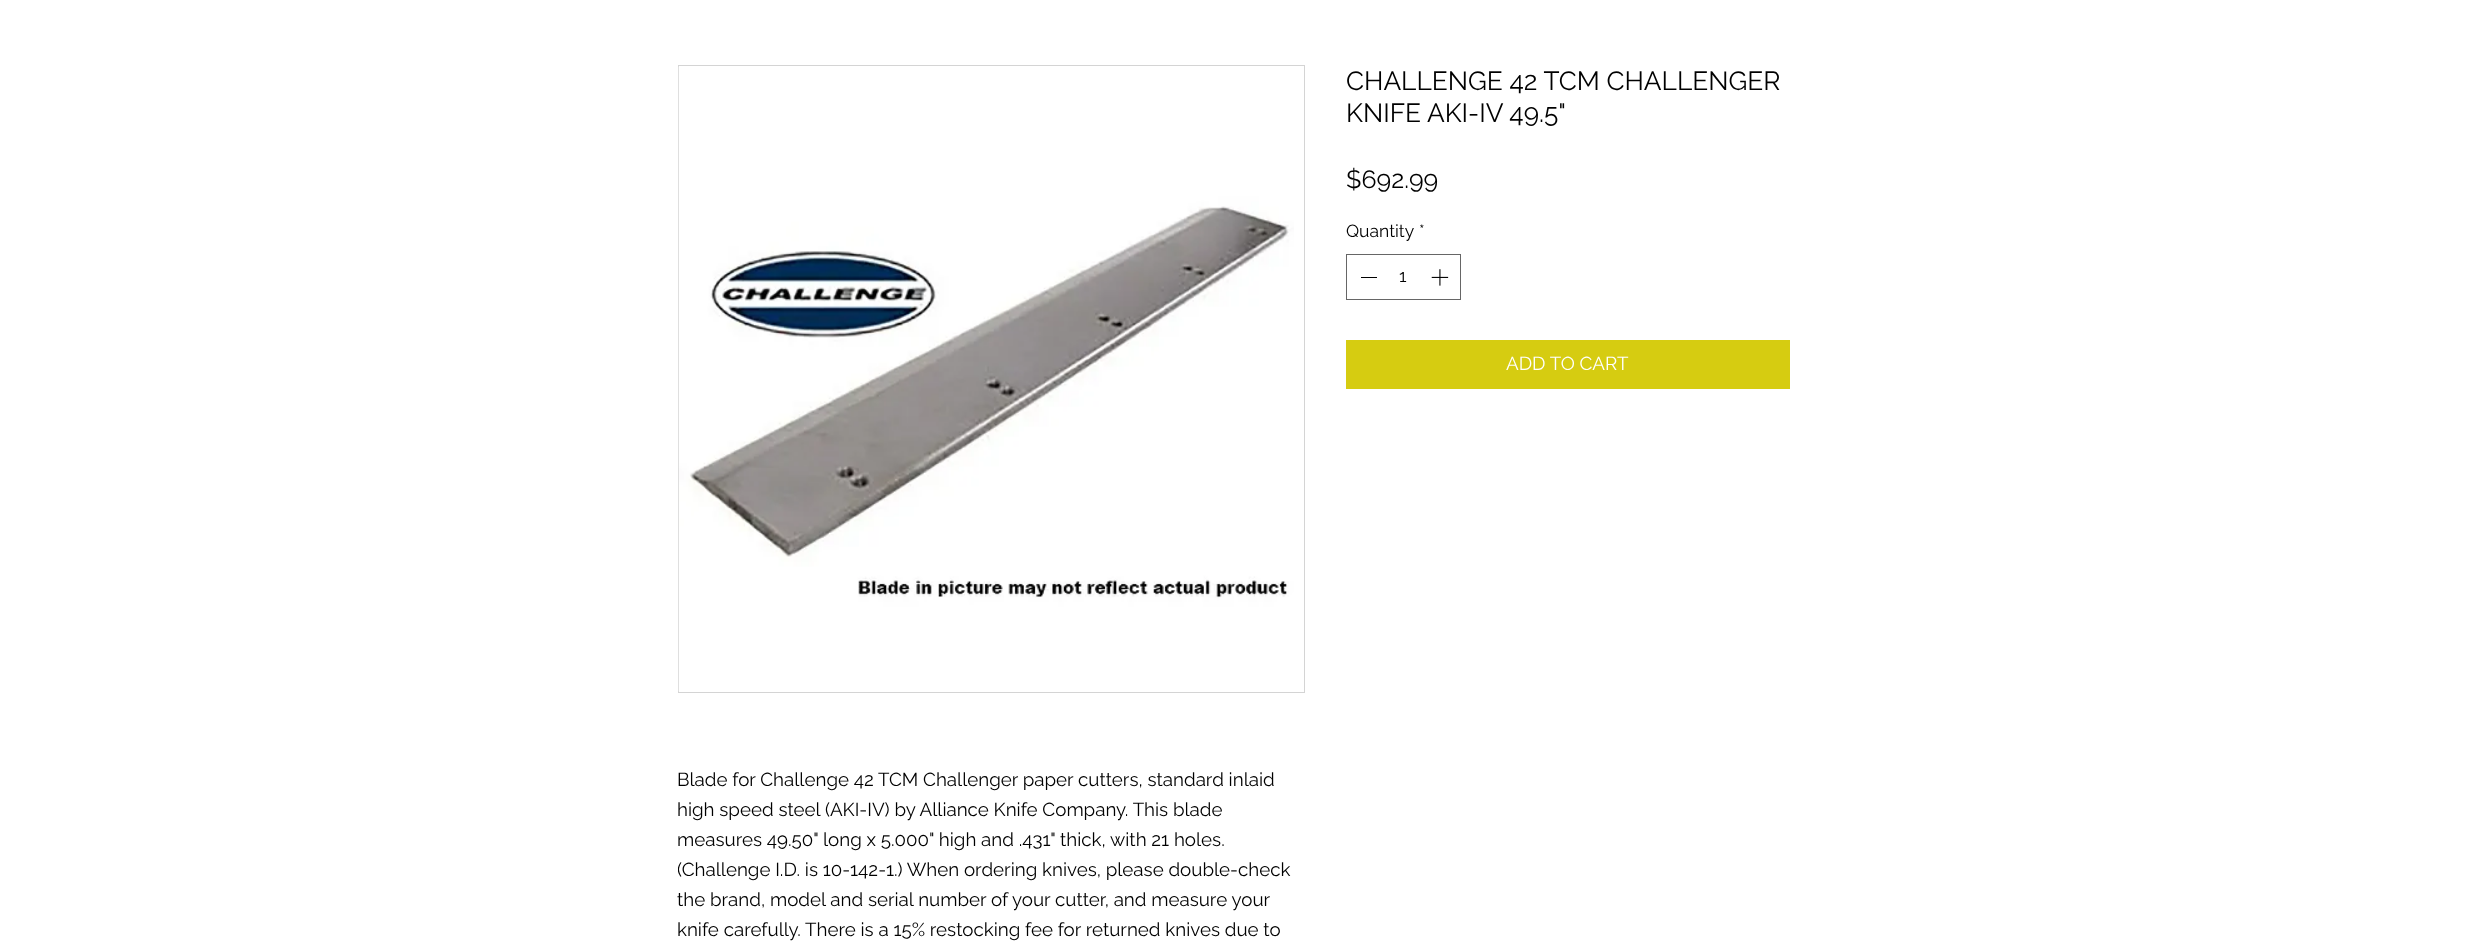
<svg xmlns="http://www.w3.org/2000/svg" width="2466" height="951">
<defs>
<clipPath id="clip1"><rect x="678" y="765" width="625" height="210"/></clipPath>
</defs>
<rect width="100%" height="100%" fill="#fff"/>
<text x="1346" y="90" style="font-family:Raleway;font-size:26.25px;fill:#000">CHALLENGE 42 TCM CHALLENGER</text>
<text x="1346" y="122" style="font-family:Raleway;font-size:26.25px;fill:#000">KNIFE AKI-IV 49.5"</text>
<text x="1346" y="188" style="font-family:Raleway;font-size:25px;fill:#000">$692.99</text>
<text x="1346" y="237" style="font-family:Raleway;font-size:17.5px;fill:#000">Quantity</text>
<text x="1419" y="237" style="font-family:Raleway;font-size:17.5px;fill:#000">*</text>
<rect x="1346.5" y="254.5" width="114" height="45" fill="none" stroke="#666"/>
<rect x="1361" y="277" width="16" height="1" fill="#000"/>
<text x="1399" y="282" style="font-family:Raleway;font-size:17.5px;fill:#000">1</text>
<image x="1431" y="269" width="18" height="17" href="media/1.png"/>
<rect x="1346" y="340" width="444" height="49" fill="#d6cc11"/>
<text x="1506" y="370" style="font-family:Raleway;font-size:18.75px;fill:#fff">ADD TO CART</text>
<rect x="678.5" y="65.5" width="626" height="627" fill="none" stroke="#d4d4d4"/>
<image x="678" y="66" width="616" height="626" href="media/2.png"/>
<text x="677" y="786" style="font-family:Raleway;font-size:18.75px;fill:#000">Blade for Challenge 42 TCM Challenger paper cutters, standard inlaid</text>
<text x="677" y="816" style="font-family:Raleway;font-size:18.75px;fill:#000">high speed steel (AKI-IV) by Alliance Knife Company. This blade</text>
<text x="677" y="846" style="font-family:Raleway;font-size:18.75px;fill:#000">measures 49.50" long x 5.000" high and .431" thick, with 21 holes.</text>
<g clip-path="url(#clip1)">
<text x="677" y="876" style="font-family:Raleway;font-size:18.75px;fill:#000">(Challenge I.D. is 10-142-1.) When ordering knives, please double-check</text>
</g>
<text x="677" y="906" style="font-family:Raleway;font-size:18.75px;fill:#000">the brand, model and serial number of your cutter, and measure your</text>
<text x="677" y="936" style="font-family:Raleway;font-size:18.75px;fill:#000">knife carefully. There is a 15% restocking fee for returned knives due to</text>
</svg>
